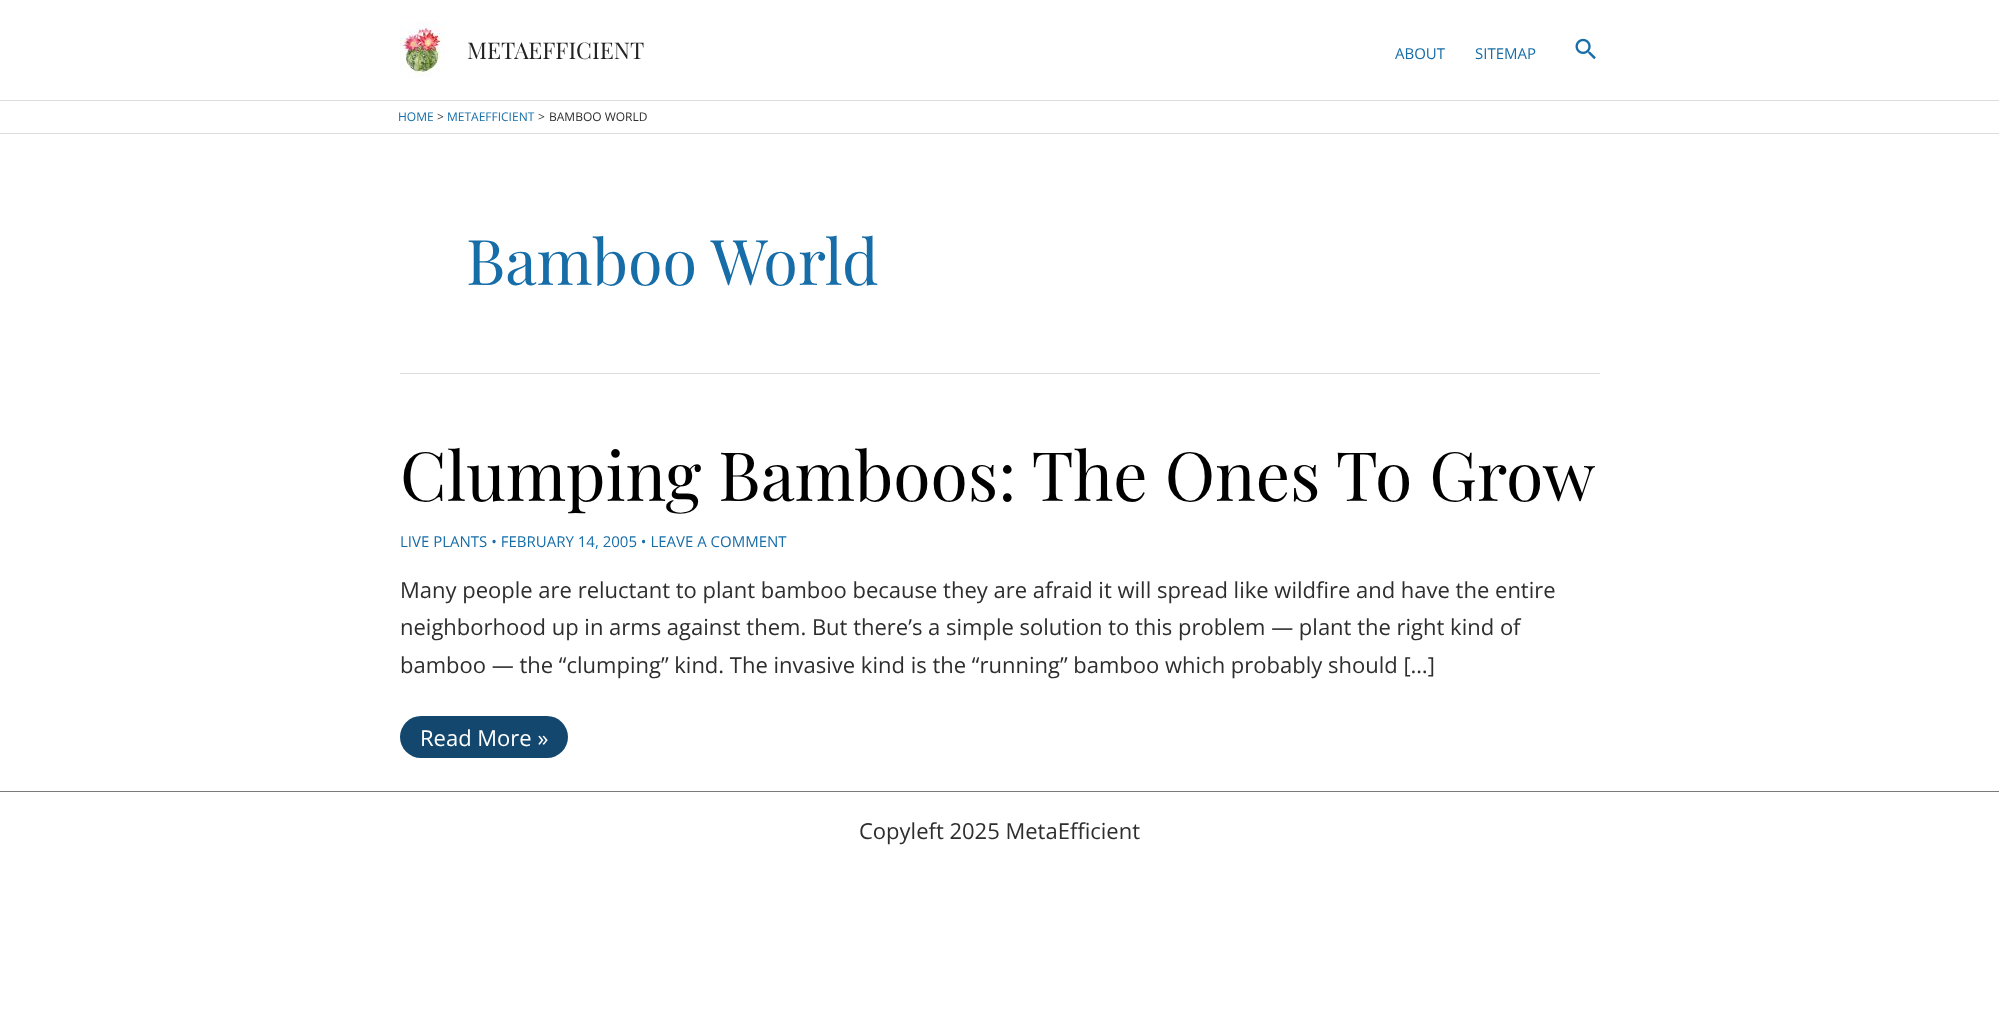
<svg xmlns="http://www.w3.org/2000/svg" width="1999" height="1019">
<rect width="100%" height="100%" fill="#fff"/>
<rect y="100" width="1999" height="1" fill="#ddd"/>
<image x="400" y="22" width="45" height="56" href="media/1.png"/>
<text x="467" y="59" style="font-family:Playfair Display;font-size:23px;fill:#222">METAEFFICIENT</text>
<text x="1395" y="59" style="font-family:Open Sans;font-size:15px;fill:#166da8">ABOUT</text>
<text x="1475" y="59" style="font-family:Open Sans;font-size:15px;fill:#166da8">SITEMAP</text>
<image x="1575" y="38" width="21" height="22" href="media/2.png"/>
<rect y="133" width="1999" height="1" fill="#ddd"/>
<text x="398" y="121" style="font-family:Open Sans;font-size:12px;fill:#166da8">HOME</text>
<text x="437" y="121" style="font-family:Open Sans;font-size:12px;fill:#2e2e2e">&gt;</text>
<text x="447" y="121" style="font-family:Open Sans;font-size:12px;fill:#166da8">METAEFFICIENT</text>
<text x="538" y="121" style="font-family:Open Sans;font-size:12px;fill:#2e2e2e">&gt;</text>
<text x="549" y="121" style="font-family:Open Sans;font-size:12px;fill:#2e2e2e">BAMBOO WORLD</text>
<rect x="400" y="373" width="1200" height="1" fill="#ddd"/>
<text x="466" y="285" style="font-family:Playfair Display;font-size:63px;fill:#166da8">Bamboo World</text>
<text x="400" y="501" style="font-family:Playfair Display;font-size:68px;fill:#000">Clumping Bamboos: The Ones To Grow</text>
<text x="400" y="547" style="font-family:Open Sans;font-size:15px;fill:#166da8">LIVE PLANTS • FEBRUARY 14, 2005 • LEAVE A COMMENT</text>
<text x="400" y="598" style="font-family:Open Sans;font-size:22px;fill:#2e2e2e">Many people are reluctant to plant bamboo because they are afraid it will spread like wildfire and have the entire</text>
<text x="400" y="635" style="font-family:Open Sans;font-size:22px;fill:#2e2e2e">neighborhood up in arms against them. But there’s a simple solution to this problem — plant the right kind of</text>
<text x="400" y="673" style="font-family:Open Sans;font-size:22px;fill:#2e2e2e">bamboo — the “clumping” kind. The invasive kind is the “running” bamboo which probably should […]</text>
<rect x="400" y="716" width="168" height="42" rx="21" fill="#13476e"/>
<text x="420" y="746" style="font-family:Open Sans;font-size:22px;fill:#fff">Read More »</text>
<rect y="791" width="1999" height="1" fill="#7a7a7a"/>
<text x="859" y="839" style="font-family:Open Sans;font-size:22px;fill:#2e2e2e">Copyleft 2025 MetaEfficient</text>
</svg>
